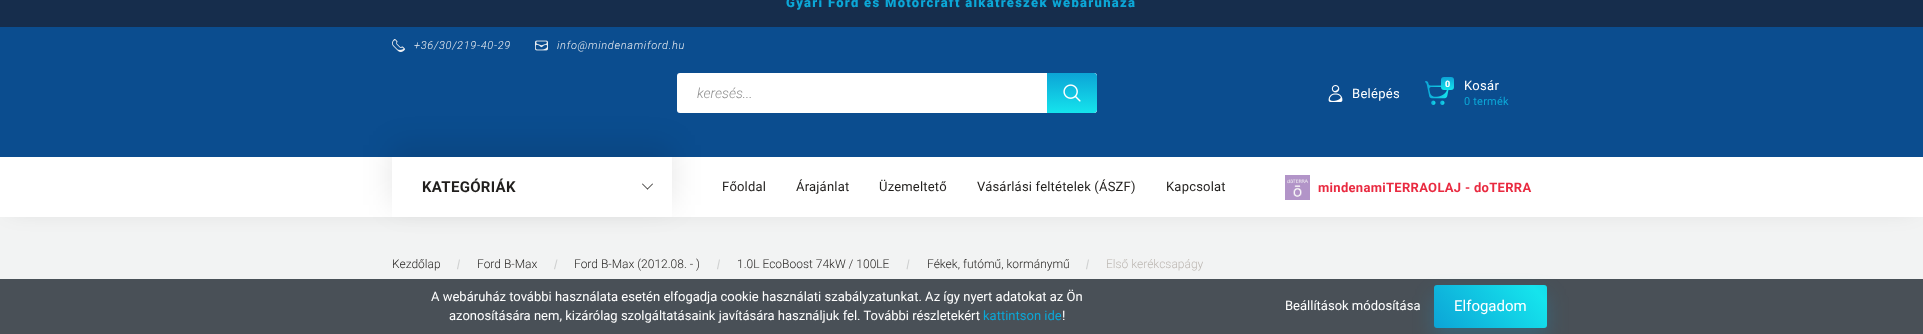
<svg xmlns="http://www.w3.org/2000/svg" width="1923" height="334">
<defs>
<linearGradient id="g1" gradientUnits="userSpaceOnUse" x1="1072" y1="73" x2="1072" y2="113"><stop offset="0" stop-color="#0ca4d6"/><stop offset="1" stop-color="#15e4ed"/></linearGradient>
<linearGradient id="g2" gradientUnits="userSpaceOnUse" x1="1448" y1="77" x2="1448" y2="90"><stop offset="0" stop-color="#0ca4d6"/><stop offset="1" stop-color="#15e4ed"/></linearGradient>
<clipPath id="clip1"><path d="M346 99h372v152h-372zm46 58h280v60h-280z" clip-rule="evenodd"/></clipPath>
<linearGradient id="g3" gradientUnits="userSpaceOnUse" x1="1470" y1="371" x2="1624" y2="242"><stop offset="0" stop-color="#0ca4d6"/><stop offset="0.51" stop-color="#15e4ed"/><stop offset="1" stop-color="#0ca4d6"/></linearGradient>
</defs>
<rect width="100%" height="100%" fill="#f2f3f3"/>
<rect x="10" y="-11" width="1903" height="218" fill="#00000026" filter="blur(12.5px)"/>
<rect y="27" width="1923" height="130" fill="#0b4d8f"/>
<rect width="1923" height="27" fill="#162d4c"/>
<text x="786" y="7" style="font-family:Roboto;font-size:13px;font-weight:900;letter-spacing:1.3px;fill:#0ca7d7">Gyári Ford és Motorcraft alkatrészek webáruháza</text>
<image x="392" y="39" width="13" height="13" href="media/1.png"/>
<text x="414" y="49" style="font-family:Roboto;font-size:11px;font-weight:300;font-style:italic;letter-spacing:0.7px;fill:#edeff2">+36/30/219-40-29</text>
<image x="535" y="40" width="13" height="11" href="media/2.png"/>
<text x="557" y="49" style="font-family:Roboto;font-size:11px;font-weight:300;font-style:italic;letter-spacing:0.7px;fill:#edeff2">info@mindenamiford.hu</text>
<rect x="677" y="73" width="420" height="40" rx="3" fill="#fff"/>
<text x="697" y="98" style="font-family:Roboto;font-size:14px;font-weight:300;font-style:italic;fill:#8e8e8e">keresés...</text>
<path d="M1047 73h47c1.5 0 3 1.5 3 3v34c0 1.5-1.5 3-3 3h-47z" fill="url(#g1)"/>
<image x="1063" y="84" width="18" height="18" href="media/3.png"/>
<image x="1328" y="85" width="15" height="17" href="media/4.png"/>
<text x="1352" y="98" style="font-family:Roboto;font-size:13px;letter-spacing:0.3px;fill:#fff">Belépés</text>
<image x="1425" y="81" width="24" height="24" href="media/5.png"/>
<rect x="1441" y="77" width="13" height="13" rx="3" fill="url(#g2)"/>
<text x="1445" y="87" style="font-family:Roboto;font-size:9px;font-weight:900;letter-spacing:0.2px;fill:#fff">0</text>
<text x="1464" y="90" style="font-family:Roboto;font-size:13px;letter-spacing:0.3px;fill:#fff">Kosár</text>
<text x="1464" y="105" style="font-family:Roboto;font-size:11px;letter-spacing:0.2px;fill:#0ca7d7">0 termék</text>
<rect y="157" width="1923" height="60" fill="#fff"/>
<g clip-path="url(#clip1)">
<rect x="392" y="145" width="280" height="60" fill="#0000001a" filter="blur(15px)"/>
</g>
<text x="422" y="192" style="font-family:Roboto;font-size:15px;font-weight:bold;letter-spacing:0.3px;fill:#211f1d">KATEGÓRIÁK</text>
<path d="M652.5 183.5l.5 .5l-5.5 5.5l-.5-.5z" fill="#211f1d"/>
<path d="M642.5 183.5l5.5 5.5l-.5 .5l-5.5-5.5z" fill="#211f1d"/>
<text x="722" y="191" style="font-family:Roboto;font-size:13px;letter-spacing:0.2px;fill:#211f1d">Főoldal</text>
<text x="796" y="191" style="font-family:Roboto;font-size:13px;letter-spacing:0.2px;fill:#211f1d">Árajánlat</text>
<text x="879" y="191" style="font-family:Roboto;font-size:13px;letter-spacing:0.2px;fill:#211f1d">Üzemeltető</text>
<text x="977" y="191" style="font-family:Roboto;font-size:13px;letter-spacing:0.2px;fill:#211f1d">Vásárlási feltételek (ÁSZF)</text>
<text x="1166" y="191" style="font-family:Roboto;font-size:13px;letter-spacing:0.2px;fill:#211f1d">Kapcsolat</text>
<image x="1285" y="175" width="25" height="25" href="media/6.png"/>
<text x="1318" y="192" style="font-family:Roboto;font-size:13px;font-weight:bold;letter-spacing:0.3px;fill:#e92a40">mindenamiTERRAOLAJ - doTERRA</text>
<text x="392" y="268" style="font-family:Roboto;font-size:12px;font-weight:300;fill:#211f1d">Kezdőlap</text>
<path d="M459 259.5h1l-2 10l-1-.5z" fill="#cecfcf"/>
<text x="477" y="268" style="font-family:Roboto;font-size:12px;font-weight:300;fill:#211f1d">Ford B-Max</text>
<path d="M556.5 259.5h1l-2.5 10l-1-.5z" fill="#cecfcf"/>
<text x="574" y="268" style="font-family:Roboto;font-size:12px;font-weight:300;fill:#211f1d">Ford B-Max (2012.08. - )</text>
<path d="M719 259.5h1l-2 10l-1-.5z" fill="#cecfcf"/>
<text x="737" y="268" style="font-family:Roboto;font-size:12px;font-weight:300;fill:#211f1d">1.0L EcoBoost 74kW / 100LE</text>
<path d="M908.5 259.5h1l-2 10l-1-.5z" fill="#cecfcf"/>
<text x="927" y="268" style="font-family:Roboto;font-size:12px;font-weight:300;fill:#211f1d">Fékek, futómű, kormánymű</text>
<path d="M1088 259.5h1l-2 10l-1-.5z" fill="#cecfcf"/>
<text x="1106" y="268" style="font-family:Roboto;font-size:12px;font-weight:300;fill:#bdb8b3">Első kerékcsapágy</text>
<rect y="279" width="1923" height="55" fill="#495057"/>
<text x="431" y="301" style="font-family:Roboto;font-size:13px;fill:#fff">A webáruház további használata esetén elfogadja cookie használati szabályzatunkat. Az így nyert adatokat az Ön</text>
<text x="449" y="320" style="font-family:Roboto;font-size:13px;fill:#fff">azonosítására nem, kizárólag szolgáltatásaink javítására használjuk fel. További részletekért</text>
<text x="983" y="320" style="font-family:Roboto;font-size:13px;fill:#0ca7d7">kattintson ide</text>
<text x="1062" y="320" style="font-family:Roboto;font-size:13px;fill:#fff">!</text>
<text x="1285" y="310" style="font-family:Roboto;font-size:13px;fill:#fff">Beállítások módosítása</text>
<rect x="1434" y="295" width="113" height="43" rx="3" fill="#0ca4d640" filter="blur(10px)"/>
<rect x="1434" y="285" width="113" height="43" rx="3" fill="url(#g3)"/>
<text x="1454" y="311" style="font-family:Roboto;font-size:15px;fill:#fff">Elfogadom</text>
</svg>
